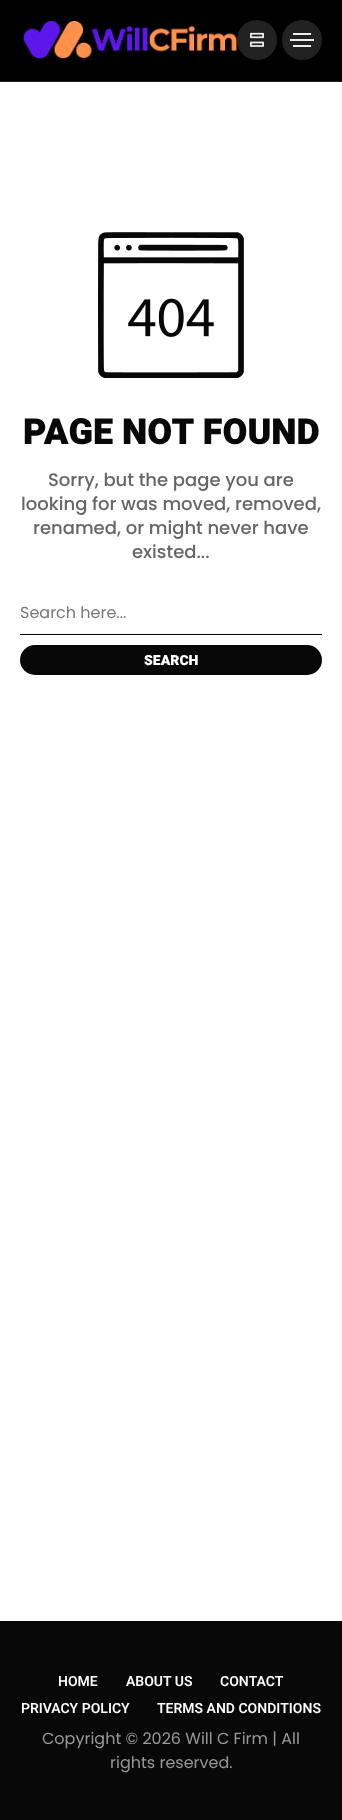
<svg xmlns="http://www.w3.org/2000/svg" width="342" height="1820">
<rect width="100%" height="100%" fill="#fff"/>
<rect width="342" height="81" fill="#000"/>
<rect y="81" width="342" height="1" fill="#222"/>
<image x="23" y="21" width="215" height="38" href="media/1.png"/>
<circle cx="257" cy="40" r="20" fill="#222"/>
<image x="250" y="32" width="14" height="15" href="media/2.png"/>
<circle cx="302" cy="40" r="20" fill="#222"/>
<rect x="290" y="39" width="24" height="2" fill="#eee"/>
<rect x="293" y="33" width="18" height="2" fill="#eee"/>
<rect x="293" y="45" width="18" height="2" fill="#eee"/>
<image x="98" y="232" width="146" height="146" href="media/3.png"/>
<text x="23" y="444" style="font-family:Heebo;font-size:36px;font-weight:900;fill:#080808">PAGE NOT FOUND</text>
<text x="48" y="486" style="font-family:Poppins;font-size:18px;font-weight:500;fill:#666">Sorry, but the page you are</text>
<text x="21" y="510" style="font-family:Poppins;font-size:18px;font-weight:500;fill:#666">looking for was moved, removed,</text>
<text x="33" y="534" style="font-family:Poppins;font-size:18px;font-weight:500;fill:#666">renamed, or might never have</text>
<text x="132" y="558" style="font-family:Poppins;font-size:18px;font-weight:500;fill:#666">existed...</text>
<rect x="20" y="634" width="302" height="1" fill="#000"/>
<text x="20" y="618" style="font-family:Poppins;font-size:16px;fill:#777">Search here...</text>
<rect x="20" y="645" width="302" height="30" rx="15" fill="#080808"/>
<text x="144" y="665" style="font-family:Heebo;font-size:14px;font-weight:900;fill:#fff">SEARCH</text>
<rect y="1621" width="342" height="199" fill="#080808"/>
<text x="58" y="1686" style="font-family:Heebo;font-size:14px;font-weight:600;fill:#fff">HOME</text>
<text x="126" y="1686" style="font-family:Heebo;font-size:14px;font-weight:600;fill:#fff">ABOUT US</text>
<text x="220" y="1686" style="font-family:Heebo;font-size:14px;font-weight:600;fill:#fff">CONTACT</text>
<text x="21" y="1713" style="font-family:Heebo;font-size:14px;font-weight:600;fill:#fff">PRIVACY POLICY</text>
<text x="157" y="1713" style="font-family:Heebo;font-size:14px;font-weight:600;fill:#fff">TERMS AND CONDITIONS</text>
<text x="42" y="1744" style="font-family:Poppins;font-size:16px;fill:#999">Copyright © 2026 Will C Firm | All</text>
<text x="110" y="1768" style="font-family:Poppins;font-size:16px;fill:#999">rights reserved.</text>
</svg>
